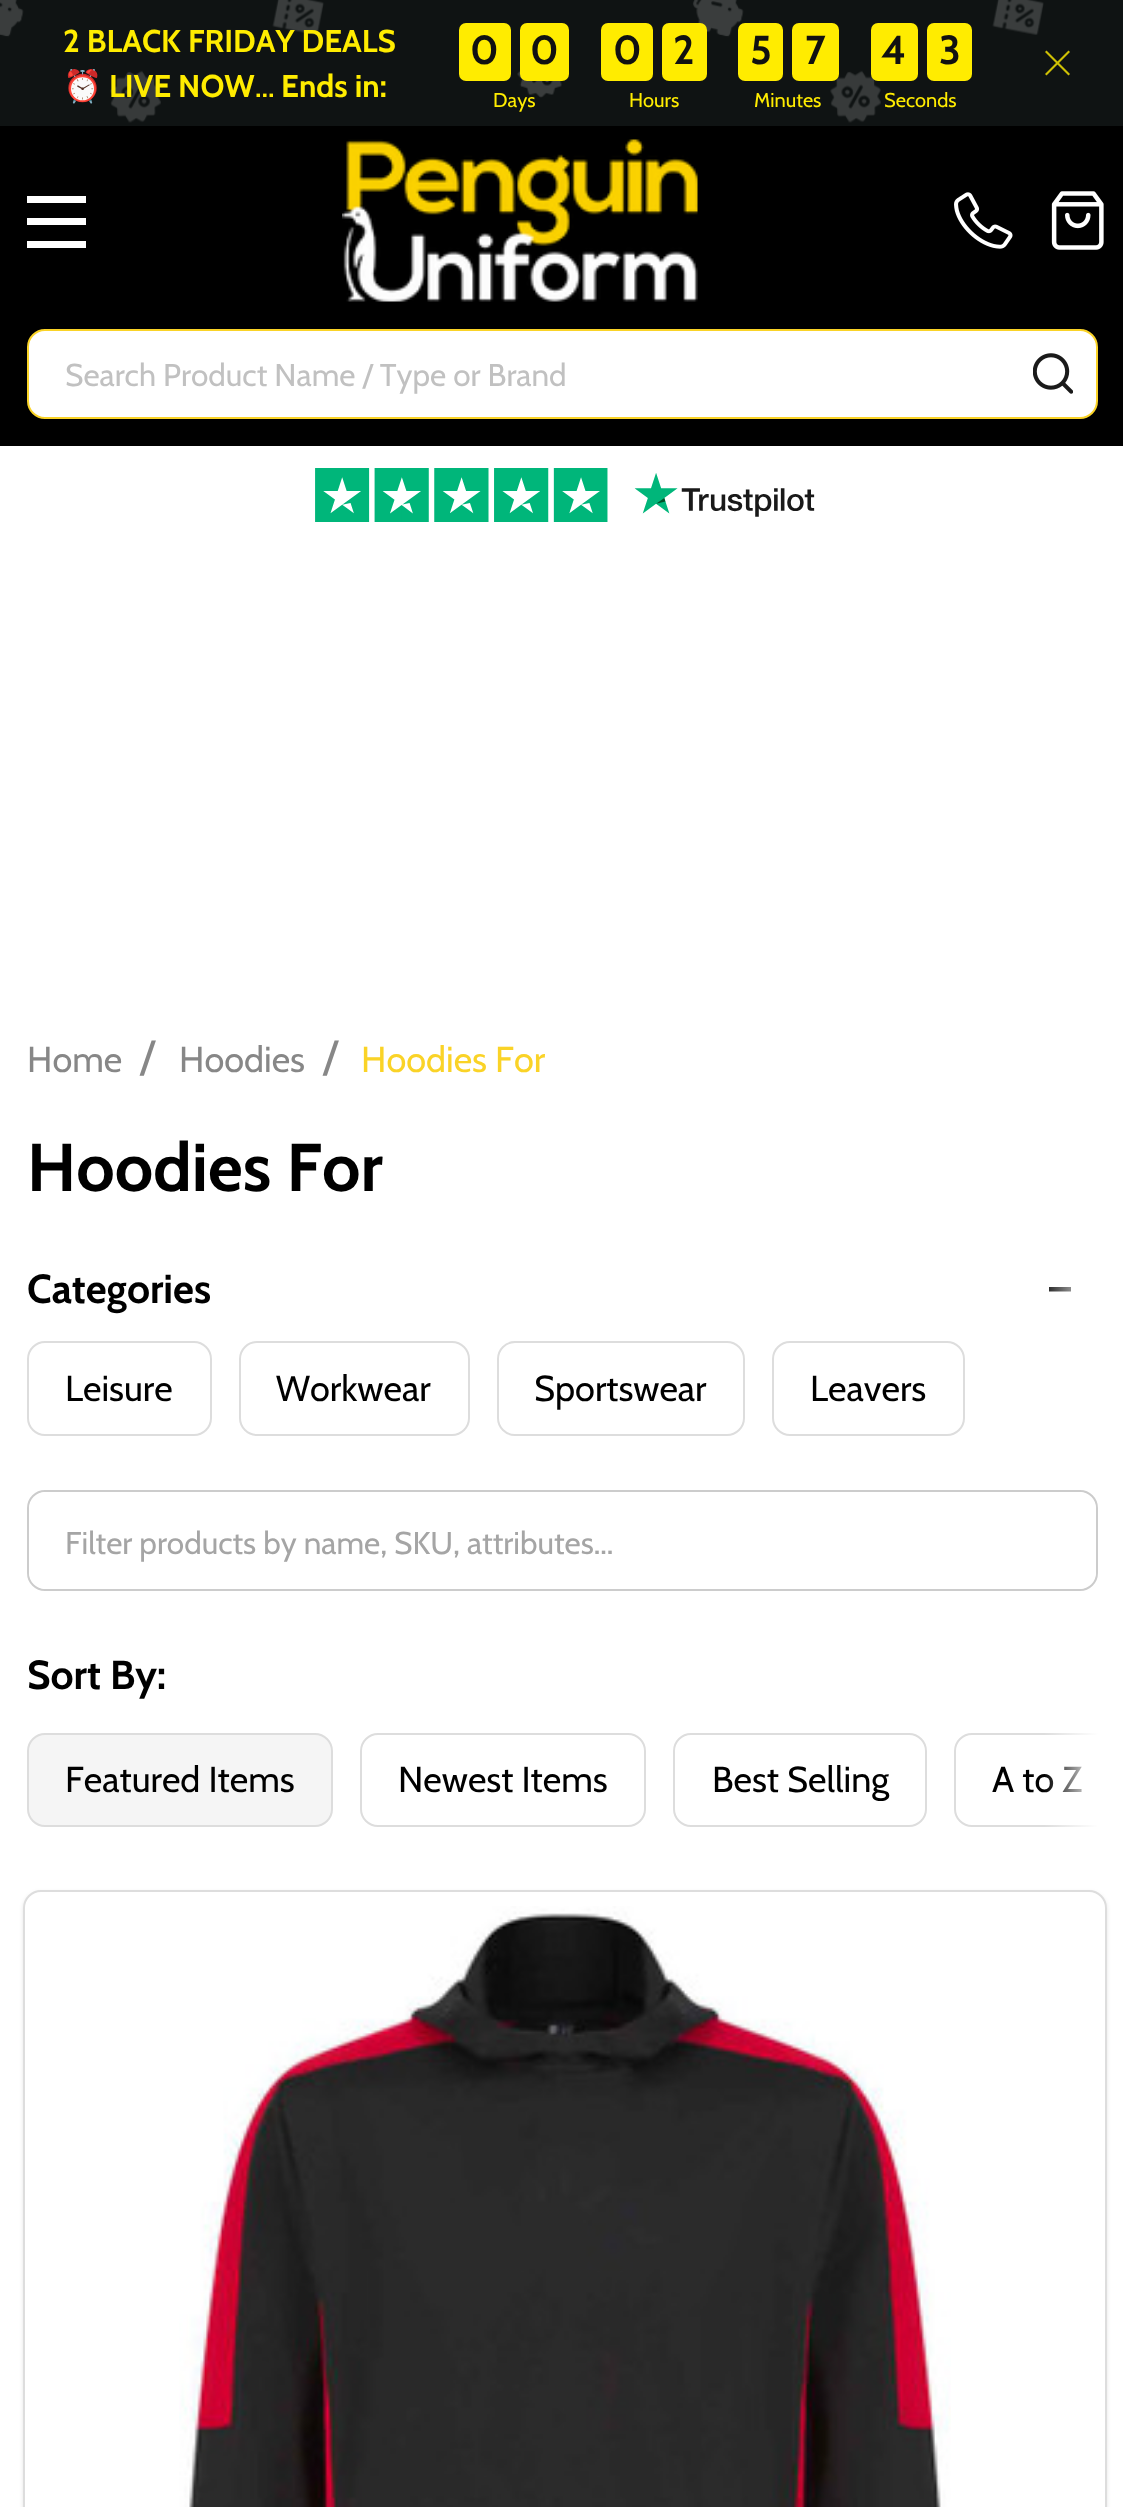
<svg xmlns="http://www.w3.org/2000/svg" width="1123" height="2507">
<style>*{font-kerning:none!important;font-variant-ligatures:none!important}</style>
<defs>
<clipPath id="clip1"><rect x="63" y="18" width="333" height="90"/></clipPath>
<clipPath id="clip2"><rect x="1049" y="1278" width="22" height="23"/></clipPath>
<linearGradient id="g1" gradientUnits="userSpaceOnUse" x1="1044" y1="1350" x2="1098" y2="1350"><stop offset="0" stop-color="#fff" stop-opacity="0"/><stop offset="1" stop-color="#fff"/></linearGradient>
<clipPath id="clip3"><rect x="27" y="1733" width="1071" height="94"/></clipPath>
<linearGradient id="g2" gradientUnits="userSpaceOnUse" x1="1044" y1="1736" x2="1098" y2="1736"><stop offset="0" stop-color="#fff" stop-opacity="0"/><stop offset="1" stop-color="#fff"/></linearGradient>
</defs>
<rect width="100%" height="100%" fill="#fff"/>
<rect width="1123" height="126" fill="#0f1313"/>
<image x="0" y="0" width="1044" height="123" href="media/1.png"/>
<text x="63" y="52" style="font-family:Cabin;font-size:31.5px;font-weight:bold;fill:#ffec00">2 BLACK FRIDAY DEALS</text>
<g clip-path="url(#clip1)">
<text x="63" y="97" style="font-family:Noto Color Emoji;font-size:31.5px;fill:#ffec00">⏰</text>
</g>
<text x="109" y="97" style="font-family:Cabin;font-size:31.5px;font-weight:bold;fill:#ffec00">LIVE NOW</text>
<text x="255" y="97" style="font-family:Cabin;font-size:31.5px;fill:#ffec00">...</text>
<text x="281" y="97" style="font-family:Cabin;font-size:31.5px;font-weight:bold;fill:#ffec00">Ends in:</text>
<rect x="459" y="23" width="52" height="58" rx="7" fill="#ffec00"/>
<text x="470" y="64" style="font-family:Cabin;font-size:40.5px;font-weight:bold;fill:#111">0</text>
<rect x="520" y="23" width="49" height="58" rx="7" fill="#ffec00"/>
<text x="530" y="64" style="font-family:Cabin;font-size:40.5px;font-weight:bold;fill:#111">0</text>
<text x="493" y="107" style="font-family:Cabin;font-size:20px;fill:#ffec00">Days</text>
<rect x="601" y="23" width="52" height="58" rx="7" fill="#ffec00"/>
<text x="613" y="64" style="font-family:Cabin;font-size:40.5px;font-weight:bold;fill:#111">0</text>
<rect x="662" y="23" width="45" height="58" rx="7" fill="#ffec00"/>
<text x="673" y="64" style="font-family:Cabin;font-size:40.5px;font-weight:bold;fill:#111">2</text>
<text x="629" y="107" style="font-family:Cabin;font-size:20px;fill:#ffec00">Hours</text>
<rect x="738" y="23" width="45" height="58" rx="7" fill="#ffec00"/>
<text x="750" y="64" style="font-family:Cabin;font-size:40.5px;font-weight:bold;fill:#111">5</text>
<rect x="792" y="23" width="47" height="58" rx="7" fill="#ffec00"/>
<text x="805" y="64" style="font-family:Cabin;font-size:40.5px;font-weight:bold;fill:#111">7</text>
<text x="754" y="107" style="font-family:Cabin;font-size:20px;fill:#ffec00">Minutes</text>
<rect x="871" y="23" width="47" height="58" rx="7" fill="#ffec00"/>
<text x="881" y="64" style="font-family:Cabin;font-size:40.5px;font-weight:bold;fill:#111">4</text>
<rect x="927" y="23" width="45" height="58" rx="7" fill="#ffec00"/>
<text x="939" y="64" style="font-family:Cabin;font-size:40.5px;font-weight:bold;fill:#111">3</text>
<text x="884" y="107" style="font-family:Cabin;font-size:20px;fill:#ffec00">Seconds</text>
<path d="M1046.5 50.5l23.5 23.5l-1.5 1.5l-23.5-23.5z" fill="#cfc104"/>
<path d="M1045 74l23.5-23.5l1.5 1.5l-23.5 23.5z" fill="#cfc104"/>
<rect y="126" width="1123" height="320" fill="#000"/>
<rect x="27" y="218" width="59" height="7" fill="#fff"/>
<rect x="27" y="196" width="59" height="7" fill="#fff"/>
<rect x="27" y="241" width="59" height="7" fill="#fff"/>
<image x="342" y="139" width="356" height="163" href="media/2.png"/>
<image x="954" y="192" width="59" height="57" href="media/3.png"/>
<image x="1051" y="191" width="53" height="59" href="media/4.png"/>
<rect x="28" y="330" width="1069" height="88" rx="17" fill="#fff" stroke="#fad327" stroke-width="2"/>
<text x="65" y="386" style="font-family:Cabin;font-size:31.5px;fill:#c1c1c1">Search Product Name / Type or Brand</text>
<image x="1033" y="353" width="40" height="41" href="media/5.png"/>
<image x="315" y="468" width="500" height="54" href="media/6.png"/>
<text x="27" y="1072" style="font-family:Cabin;font-size:36px;fill:#878787">Home</text>
<text x="140" y="1072" style="font-family:Cabin;font-size:45px;fill:#878787">/</text>
<text x="179" y="1072" style="font-family:Cabin;font-size:36px;fill:#878787">Hoodies</text>
<text x="323" y="1072" style="font-family:Cabin;font-size:45px;fill:#878787">/</text>
<text x="361" y="1072" style="font-family:Cabin;font-size:36px;fill:#fad327">Hoodies For</text>
<text x="27" y="1191" style="font-family:Cabin;font-size:67.5px;font-weight:bold;fill:#000">Hoodies For</text>
<text x="27" y="1303" style="font-family:Cabin;font-size:40.5px;font-weight:bold;fill:#000">Categories</text>
<g clip-path="url(#clip2)">
<path d="M1048.5 1291.5v-4.5h22.5v4.5" fill="#1a1a1a"/>
</g>
<rect x="1049" y="1287" width="22" height="5" fill="url(#g1)"/>
<rect x="28" y="1342" width="183" height="93" rx="17" fill="none" stroke="#ddd" stroke-width="2"/>
<text x="65" y="1401" style="font-family:Cabin;font-size:36px;fill:#000">Leisure</text>
<rect x="240" y="1342" width="229" height="93" rx="17" fill="none" stroke="#ddd" stroke-width="2"/>
<text x="276" y="1401" style="font-family:Cabin;font-size:36px;fill:#000">Workwear</text>
<rect x="498" y="1342" width="246" height="93" rx="17" fill="none" stroke="#ddd" stroke-width="2"/>
<text x="534" y="1401" style="font-family:Cabin;font-size:36px;fill:#000">Sportswear</text>
<rect x="773" y="1342" width="191" height="93" rx="17" fill="none" stroke="#ddd" stroke-width="2"/>
<text x="810" y="1401" style="font-family:Cabin;font-size:36px;fill:#000">Leavers</text>
<rect x="28" y="1491" width="1069" height="99" rx="17" fill="none" stroke="#ccc" stroke-width="2"/>
<rect x="29" y="1492" width="1067" height="97" rx="18" fill="#fff"/>
<text x="65" y="1554" style="font-family:Cabin;font-size:31.5px;fill:#a5a5a5">Filter products by name, SKU, attributes...</text>
<text x="27" y="1689" style="font-family:Cabin;font-size:40.5px;font-weight:bold;fill:#000">Sort By:</text>
<g clip-path="url(#clip3)">
<rect x="955" y="1734" width="165" height="92" rx="17" fill="none" stroke="#ddd" stroke-width="2"/>
</g>
<text x="992" y="1792" style="font-family:Cabin;font-size:36px;fill:#000">A to Z</text>
<rect x="1045" y="1733" width="53" height="94" fill="url(#g2)"/>
<rect x="28" y="1734" width="304" height="92" rx="17" fill="#f5f5f5" stroke="#ddd" stroke-width="2"/>
<text x="65" y="1792" style="font-family:Cabin;font-size:36px;fill:#000">Featured Items</text>
<rect x="361" y="1734" width="284" height="92" rx="17" fill="none" stroke="#ddd" stroke-width="2"/>
<text x="398" y="1792" style="font-family:Cabin;font-size:36px;fill:#000">Newest Items</text>
<rect x="674" y="1734" width="252" height="92" rx="17" fill="none" stroke="#ddd" stroke-width="2"/>
<text x="712" y="1792" style="font-family:Cabin;font-size:36px;fill:#000">Best Selling</text>
<rect x="23" y="1892" width="1084" height="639" rx="18" fill="#0000001a" filter="blur(2px)"/>
<rect x="24" y="1891" width="1082" height="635" rx="17" fill="#fff" stroke="#ddd" stroke-width="2"/>
<image x="179" y="1906" width="772" height="601" href="media/7.png"/>
</svg>
